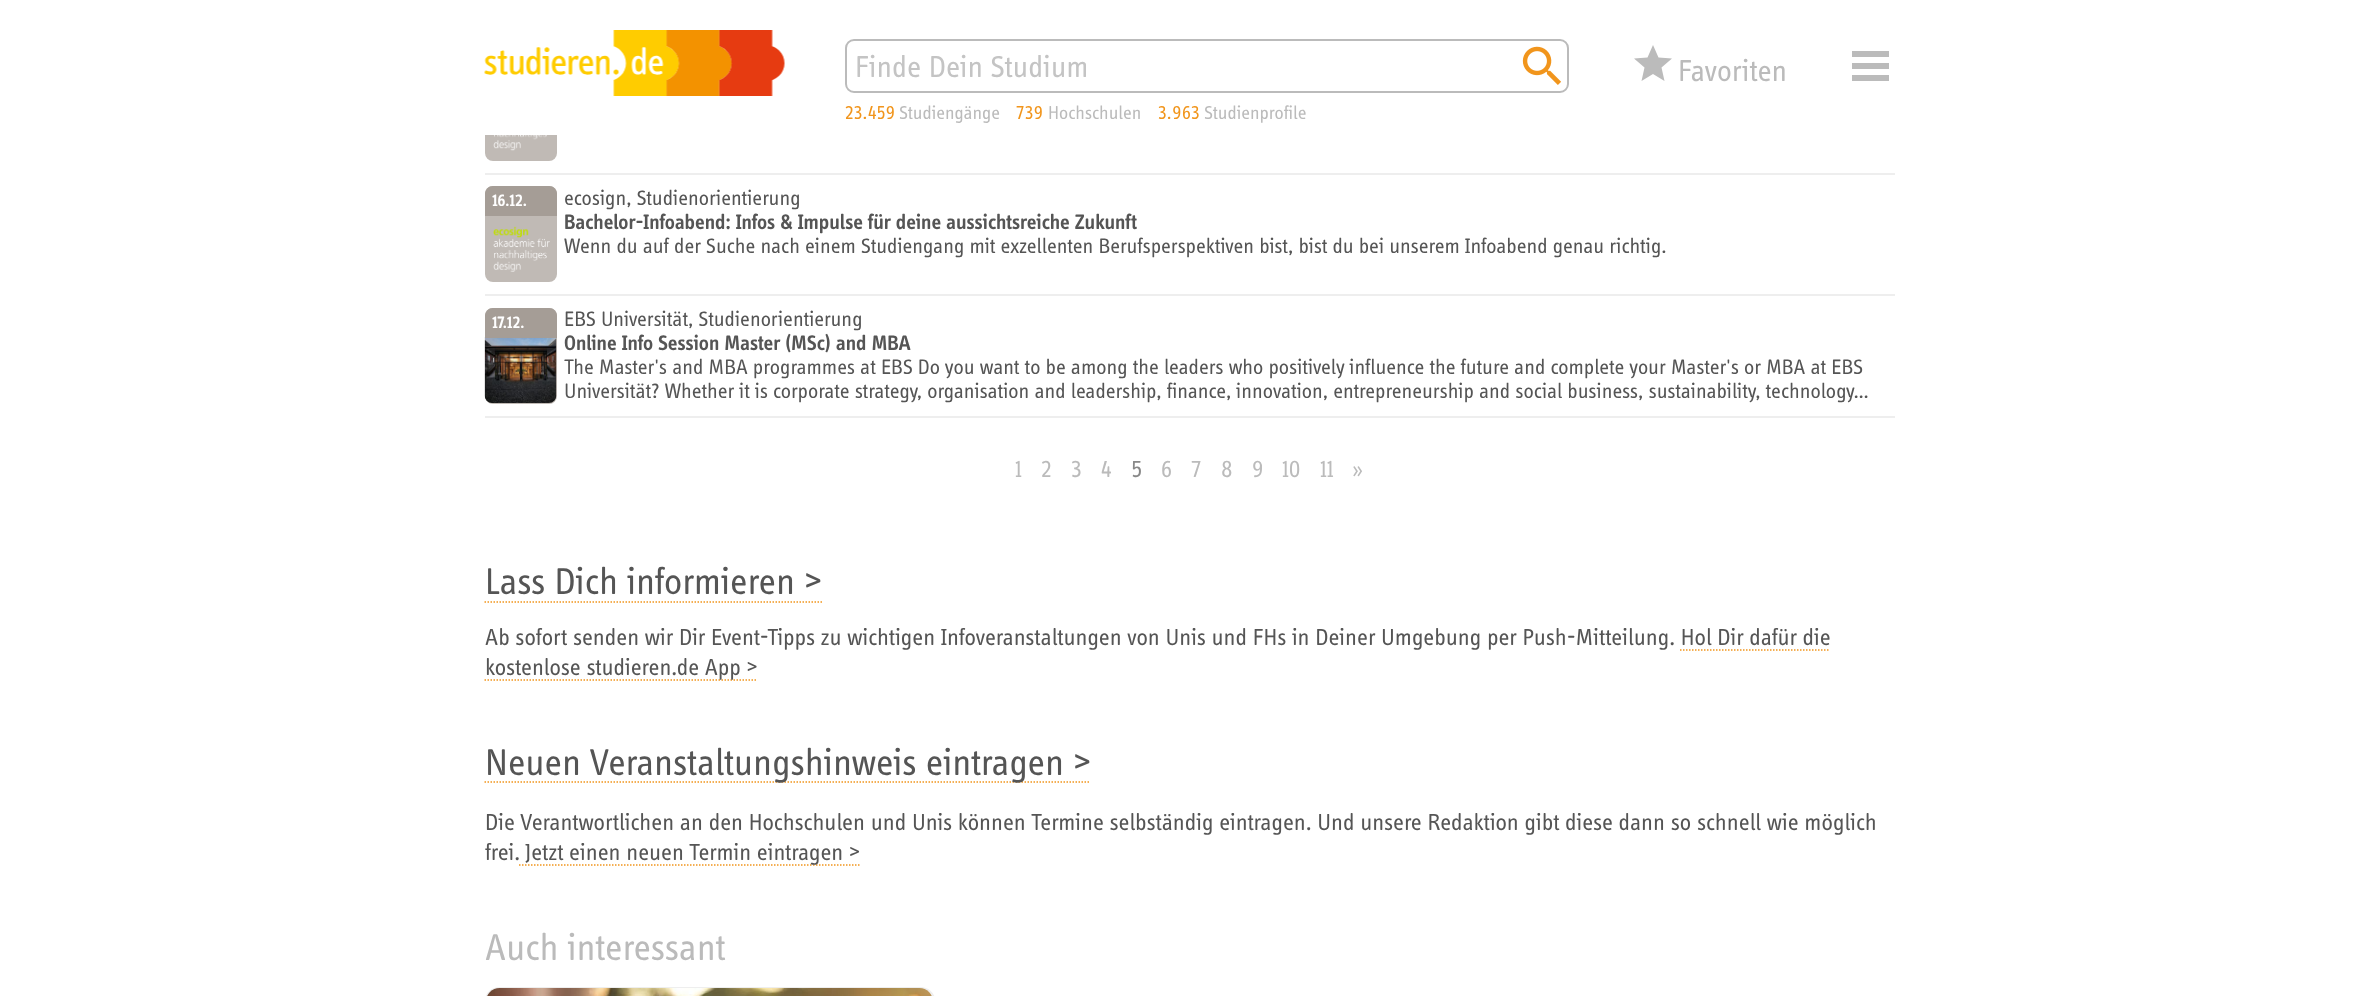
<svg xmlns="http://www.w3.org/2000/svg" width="2379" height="996">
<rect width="100%" height="100%" fill="#fff"/>
<rect x="485" y="65" width="72" height="96" rx="8" fill="#c0bab5"/>
<rect x="485" y="65" width="72" height="70" fill="#fff"/>
<image x="484" y="30" width="301" height="66" href="media/1.png"/>
<rect x="846" y="40" width="722" height="52" rx="8" fill="none" stroke="#bbb" stroke-width="2"/>
<text x="855" y="77" style="font-family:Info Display;font-size:31.25px;fill:#c4c4c4">Finde Dein Studium</text>
<image x="1522" y="46" width="39" height="39" href="media/2.png"/>
<path d="M1653 74l11.5 7l-3-13.5l10.5-9l-13.5-1l-5.5-12.5l-5.5 12.5l-13.5 1l10.5 9l-3 13.5z" fill="#bbb"/>
<text x="1678" y="81" style="font-family:Info Display;font-size:31.25px;fill:#bbb">Favoriten</text>
<rect x="1852" y="51" width="37" height="6" fill="#bbb"/>
<rect x="1852" y="75" width="37" height="6" fill="#bbb"/>
<rect x="1852" y="63" width="37" height="6" fill="#bbb"/>
<text x="845" y="119" style="font-family:Info Display;font-size:19.25px;letter-spacing:0.75px;fill:#f1951c">23.459</text>
<text x="899" y="119" style="font-family:Info Display;font-size:19.25px;fill:#bbb">Studiengänge</text>
<text x="1016" y="119" style="font-family:Info Display;font-size:19.25px;letter-spacing:0.75px;fill:#f1951c">739</text>
<text x="1048" y="119" style="font-family:Info Display;font-size:19.25px;fill:#bbb">Hochschulen</text>
<text x="1158" y="119" style="font-family:Info Display;font-size:19.25px;letter-spacing:0.75px;fill:#f1951c">3.963</text>
<text x="1204" y="119" style="font-family:Info Display;font-size:19.25px;fill:#bbb">Studienprofile</text>
<rect x="485" y="173" width="1410" height="2" fill="#eee"/>
<image x="493" y="135" width="54" height="16" href="media/3.png"/>
<rect x="485" y="294" width="1410" height="2" fill="#eee"/>
<rect x="485" y="186" width="72" height="96" rx="8" fill="#c0bab5"/>
<path d="M493 186h56c4.5 0 8 3.5 8 8v22h-72v-22c0-4.5 3.5-8 8-8z" fill="#a59d96"/>
<text x="492" y="206" style="font-family:Info Display;font-size:17px;font-weight:600;fill:#fff">16.12.</text>
<image x="493" y="226" width="57" height="46" href="media/4.png"/>
<text x="564" y="205" style="font-family:Info Display;font-size:21.6px;fill:#555">ecosign, Studienorientierung</text>
<text x="564" y="229" style="font-family:Info Display;font-size:21.6px;font-weight:600;fill:#555">Bachelor-Infoabend: Infos &amp; Impulse für deine aussichtsreiche Zukunft</text>
<text x="564" y="253" style="font-family:Info Display;font-size:21.6px;fill:#555">Wenn du auf der Suche nach einem Studiengang mit exzellenten Berufsperspektiven bist, bist du bei unserem Infoabend genau richtig.</text>
<rect x="485" y="416" width="1410" height="2" fill="#eee"/>
<rect x="485" y="308" width="72" height="96" rx="8" fill="#c0bab5"/>
<image x="484" y="337" width="73" height="66" href="media/5.png"/>
<path d="M493 308h56c4.5 0 8 3.5 8 8v22h-72v-22c0-4.5 3.5-8 8-8z" fill="#a59d96"/>
<text x="492" y="328" style="font-family:Info Display;font-size:17px;font-weight:600;fill:#fff">17.12.</text>
<text x="564" y="326" style="font-family:Info Display;font-size:21.6px;fill:#555">EBS Universität, Studienorientierung</text>
<text x="564" y="350" style="font-family:Info Display;font-size:21.6px;font-weight:600;fill:#555">Online Info Session Master (MSc) and MBA</text>
<text x="564" y="374" style="font-family:Info Display;font-size:21.6px;fill:#555">The Master's and MBA programmes at EBS Do you want to be among the leaders who positively influence the future and complete your Master's or MBA at EBS</text>
<text x="564" y="398" style="font-family:Info Display;font-size:21.6px;fill:#555">Universität? Whether it is corporate strategy, organisation and leadership, finance, innovation, entrepreneurship and social business, sustainability, technology…</text>
<text x="1015" y="477" style="font-family:Info Display;font-size:24px;fill:#bbb">1</text>
<text x="1041" y="477" style="font-family:Info Display;font-size:24px;fill:#bbb">2</text>
<text x="1071" y="477" style="font-family:Info Display;font-size:24px;fill:#bbb">3</text>
<text x="1101" y="477" style="font-family:Info Display;font-size:24px;fill:#bbb">4</text>
<text x="1131" y="477" style="font-family:Info Display;font-size:24px;fill:#888">5</text>
<text x="1161" y="477" style="font-family:Info Display;font-size:24px;fill:#bbb">6</text>
<text x="1191" y="477" style="font-family:Info Display;font-size:24px;fill:#bbb">7</text>
<text x="1221" y="477" style="font-family:Info Display;font-size:24px;fill:#bbb">8</text>
<text x="1252" y="477" style="font-family:Info Display;font-size:24px;fill:#bbb">9</text>
<text x="1282" y="477" style="font-family:Info Display;font-size:24px;fill:#bbb">10</text>
<text x="1320" y="477" style="font-family:Info Display;font-size:24px;fill:#bbb">11</text>
<text x="1352" y="477" style="font-family:Info Display;font-size:24px;fill:#bbb">»</text>
<text x="485" y="594" style="font-family:Info Display;font-size:38.4px;fill:#555">Lass Dich informieren &gt;</text>
<path d="M484.5 602h337.5" fill="none" stroke="#f1951c" stroke-width="1.5" stroke-dasharray="1.5 1.5"/>
<text x="485" y="645" style="font-family:Info Display;font-size:24px;fill:#555">Ab sofort senden wir Dir Event-Tipps zu wichtigen Infoveranstaltungen von Unis und FHs in Deiner Umgebung per Push-Mitteilung. Hol Dir dafür die</text>
<path d="M484.5 680h273" fill="none" stroke="#f1951c" stroke-width="1.5" stroke-dasharray="1.5 1.5"/>
<text x="485" y="675" style="font-family:Info Display;font-size:24px;fill:#555">kostenlose studieren.de App &gt;</text>
<path d="M1680 650h150" fill="none" stroke="#f1951c" stroke-width="1.5" stroke-dasharray="1.5 1.5"/>
<path d="M484.5 782h606" fill="none" stroke="#f1951c" stroke-width="1.5" stroke-dasharray="1.5 1.5"/>
<text x="485" y="775" style="font-family:Info Display;font-size:38.4px;fill:#555">Neuen Veranstaltungshinweis eintragen &gt;</text>
<text x="485" y="830" style="font-family:Info Display;font-size:24px;fill:#555">Die Verantwortlichen an den Hochschulen und Unis können Termine selbständig eintragen. Und unsere Redaktion gibt diese dann so schnell wie möglich</text>
<text x="485" y="860" style="font-family:Info Display;font-size:24px;fill:#555">frei.</text>
<path d="M519 865h342" fill="none" stroke="#f1951c" stroke-width="1.5" stroke-dasharray="1.5 1.5"/>
<text x="525" y="860" style="font-family:Info Display;font-size:24px;fill:#555">Jetzt einen neuen Termin eintragen &gt;</text>
<text x="485" y="960" style="font-family:Info Display;font-size:38.4px;fill:#bbb">Auch interessant</text>
<rect x="486" y="988" width="448" height="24" rx="14" fill="none" stroke="#eee" stroke-width="2"/>
<image x="487" y="988" width="445" height="8" href="media/6.png"/>
</svg>
